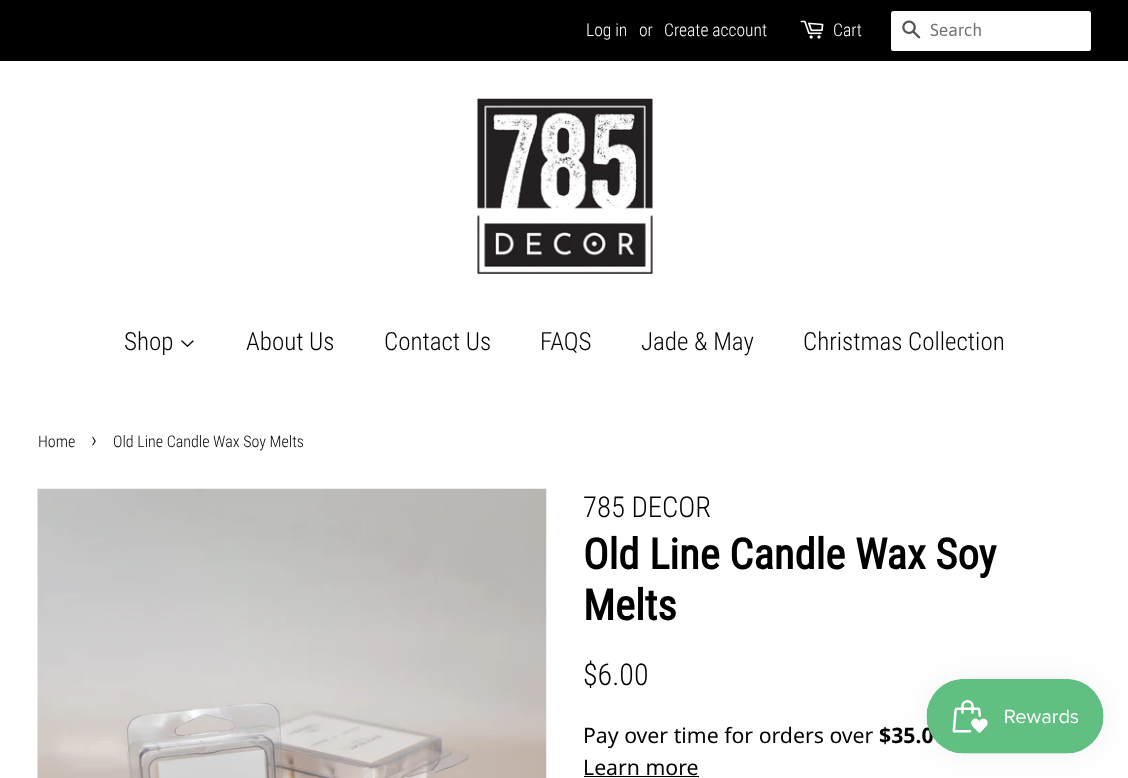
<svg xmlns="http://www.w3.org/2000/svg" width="1128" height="778">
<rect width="100%" height="100%" fill="#fff"/>
<rect width="1128" height="61" fill="#000"/>
<text x="586" y="36" style="font-family:Roboto Condensed;font-size:17.5px;font-weight:300;fill:#fff">Log in</text>
<text x="639" y="36" style="font-family:Roboto Condensed;font-size:17.5px;font-weight:300;fill:#fff">or</text>
<text x="664" y="36" style="font-family:Roboto Condensed;font-size:17.5px;font-weight:300;fill:#fff">Create account</text>
<image x="800" y="20" width="24" height="19" href="media/1.png"/>
<text x="833" y="36" style="font-family:Roboto Condensed;font-size:17.5px;font-weight:300;fill:#fff">Cart</text>
<rect x="891" y="11" width="200" height="40" rx="2.5" fill="#fff"/>
<image x="902" y="20" width="19" height="19" href="media/2.png"/>
<text x="930" y="36" style="font-family:Asap;font-size:17.5px;fill:#757575">Search</text>
<image x="477" y="98" width="176" height="176" href="media/3.png"/>
<text x="124" y="350" style="font-family:Roboto Condensed;font-size:25px;font-weight:300;fill:#000">Shop</text>
<image x="181" y="340" width="13" height="7" href="media/4.png"/>
<text x="246" y="350" style="font-family:Roboto Condensed;font-size:25px;font-weight:300;fill:#000">About Us</text>
<text x="384" y="350" style="font-family:Roboto Condensed;font-size:25px;font-weight:300;fill:#000">Contact Us</text>
<text x="540" y="350" style="font-family:Roboto Condensed;font-size:25px;font-weight:300;fill:#000">FAQS</text>
<text x="641" y="350" style="font-family:Roboto Condensed;font-size:25px;font-weight:300;fill:#000">Jade &amp; May</text>
<text x="803" y="350" style="font-family:Roboto Condensed;font-size:25px;font-weight:300;fill:#000">Christmas Collection</text>
<text x="38" y="447" style="font-family:Roboto Condensed;font-size:16px;font-weight:300;fill:#000">Home</text>
<text x="91" y="447" style="font-family:Roboto Condensed;font-size:22px;font-weight:300;fill:#000">›</text>
<text x="113" y="447" style="font-family:Roboto Condensed;font-size:16px;font-weight:300;fill:#000">Old Line Candle Wax Soy Melts</text>
<image x="37" y="488" width="510" height="290" href="media/5.png"/>
<text x="583" y="517" style="font-family:Roboto Condensed;font-size:28.75px;font-weight:300;fill:#000">785 DECOR</text>
<text x="583" y="569" style="font-family:Roboto Condensed;font-size:42.5px;font-weight:bold;fill:#000">Old Line Candle Wax Soy</text>
<text x="583" y="620" style="font-family:Roboto Condensed;font-size:42.5px;font-weight:bold;fill:#000">Melts</text>
<text x="583" y="685" style="font-family:Roboto Condensed;font-size:30px;font-weight:300;fill:#000">$6.00</text>
<text x="583" y="743" style="font-family:Noto Sans;font-size:21.25px;fill:#000">Pay over time for orders over</text>
<text x="879" y="743" style="font-family:Noto Sans;font-size:21.25px;font-weight:bold;fill:#000">$35.0</text>
<text x="583" y="775" style="font-family:Noto Sans;font-size:21.25px;fill:#000">Learn more</text>
<rect x="584" y="776" width="115" height="1" fill="#000"/>
<rect x="926" y="679" width="178" height="75" rx="37.5" fill="#0000000d" filter="blur(15.5px)"/>
<image x="926" y="679" width="178" height="75" href="media/6.png"/>
</svg>
